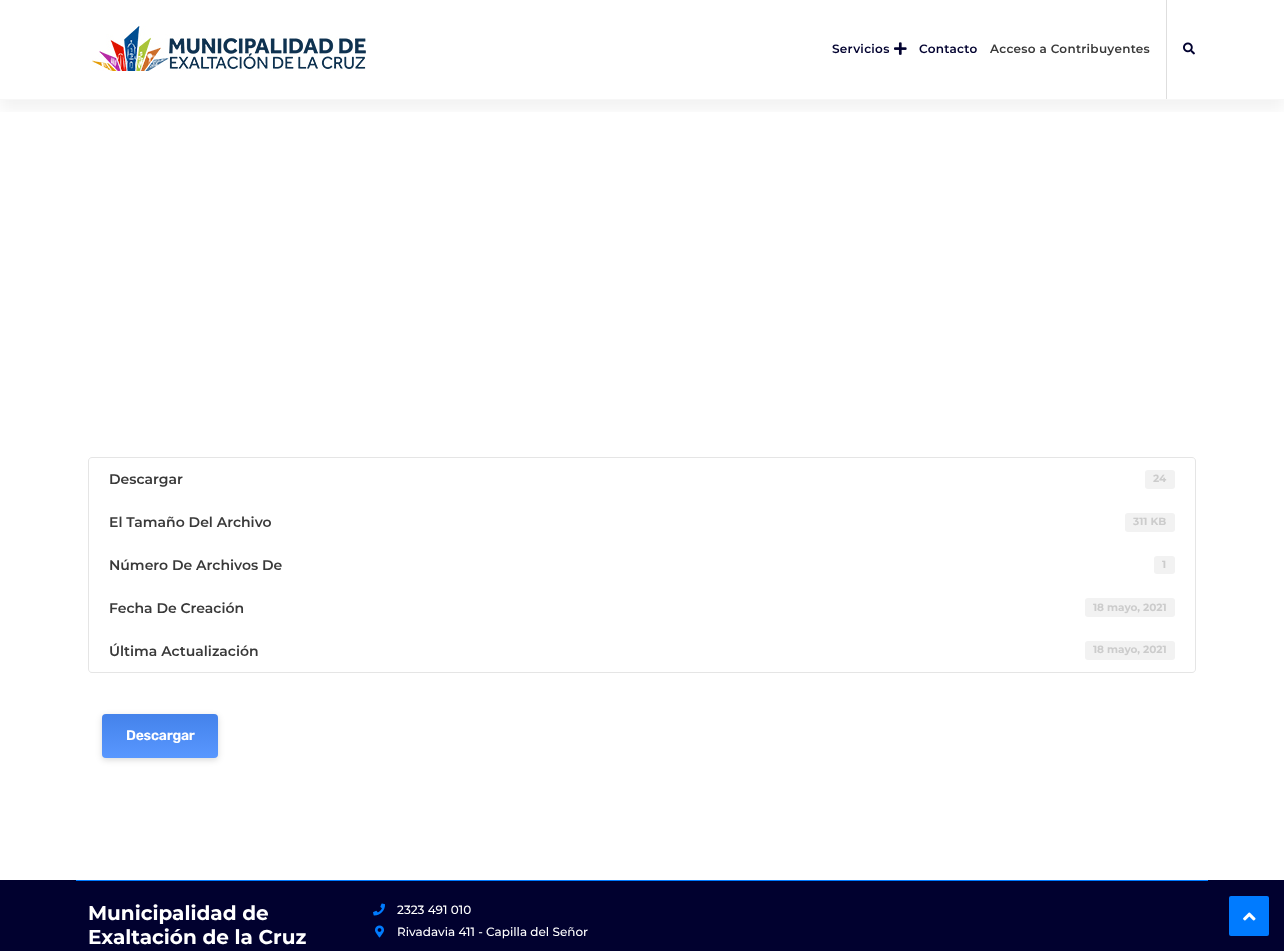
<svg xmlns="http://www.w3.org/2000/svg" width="1284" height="951">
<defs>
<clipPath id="clip1"><rect x="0" y="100" width="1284" height="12"/></clipPath>
<linearGradient id="g1" gradientUnits="userSpaceOnUse" x1="160" y1="714" x2="160" y2="758"><stop offset="0" stop-color="#000" stop-opacity="0.08"/><stop offset="1" stop-color="#fff" stop-opacity="0.08"/></linearGradient>
</defs>
<rect width="100%" height="100%" fill="#fff"/>
<g clip-path="url(#clip1)">
<rect y="9" width="1284" height="101" fill="#0000000d" filter="blur(7.5px)"/>
</g>
<rect y="99" width="1284" height="1" fill="#f7f7f7"/>
<image x="92" y="26" width="274" height="45" href="media/1.png"/>
<text x="832" y="53" style="font-family:Montserrat;font-size:12px;font-weight:600;letter-spacing:0.3px;fill:#01012f">Servicios</text>
<image x="894" y="42" width="13" height="13" href="media/2.png"/>
<text x="919" y="53" style="font-family:Montserrat;font-size:12px;font-weight:600;letter-spacing:0.3px;fill:#01012f">Contacto</text>
<text x="990" y="53" style="font-family:Montserrat;font-size:12px;font-weight:600;letter-spacing:0.3px;fill:#393939">Acceso a Contribuyentes</text>
<rect x="1166" width="1" height="99" fill="#dedede"/>
<image x="1183" y="42" width="12" height="13" href="media/3.png"/>
<path d="M92 457.5h1100c2 0 3.5 1.5 3.5 3.5v40.5h-1107v-40.5c0-2 1.5-3.5 3.5-3.5z" fill="none" stroke="#e5e5e5"/>
<text x="109" y="484" style="font-family:Montserrat;font-size:14px;font-weight:600;fill:#393939">Descargar</text>
<rect x="1145" y="470" width="30" height="19" rx="3" fill="#f2f2f2"/>
<text x="1153" y="482" style="font-family:Montserrat;font-size:10.5px;font-weight:bold;fill:#ccc">24</text>
<rect x="89" y="501" width="1106" height="1" fill="#fff"/>
<rect x="1195" y="501" width="1" height="129" fill="#e5e5e5"/>
<rect x="88" y="501" width="1" height="129" fill="#e5e5e5"/>
<text x="109" y="527" style="font-family:Montserrat;font-size:14px;font-weight:600;fill:#393939">El Tamaño Del Archivo</text>
<rect x="1125" y="513" width="50" height="19" rx="3" fill="#f2f2f2"/>
<text x="1133" y="525" style="font-family:Montserrat;font-size:10.5px;font-weight:bold;fill:#ccc">311 KB</text>
<text x="109" y="570" style="font-family:Montserrat;font-size:14px;font-weight:600;fill:#393939">Número De Archivos De</text>
<rect x="1154" y="556" width="21" height="18" rx="3" fill="#f2f2f2"/>
<text x="1162" y="568" style="font-family:Montserrat;font-size:10.5px;font-weight:bold;fill:#ccc">1</text>
<text x="109" y="613" style="font-family:Montserrat;font-size:14px;font-weight:600;fill:#393939">Fecha De Creación</text>
<rect x="1085" y="598" width="90" height="19" rx="3" fill="#f2f2f2"/>
<text x="1093" y="611" style="font-family:Montserrat;font-size:10.5px;font-weight:bold;fill:#ccc">18 mayo, 2021</text>
<path d="M88 629h1108v40c0 2-2 4-4 4h-1100c-2 0-4-2-4-4zm1 0h1106v40c0 2-1 3-3 3h-1100c-2 0-3-1-3-3z" fill="#e5e5e5" fill-rule="evenodd"/>
<text x="109" y="656" style="font-family:Montserrat;font-size:14px;font-weight:600;fill:#393939">Última Actualización</text>
<rect x="1085" y="641" width="90" height="19" rx="3" fill="#f2f2f2"/>
<text x="1093" y="653" style="font-family:Montserrat;font-size:10.5px;font-weight:bold;fill:#ccc">18 mayo, 2021</text>
<rect x="102" y="716" width="116" height="44" rx="4" fill="#00000026" filter="blur(3px)"/>
<rect x="102" y="714" width="116" height="44" rx="4" fill="#4a8eff"/>
<rect x="102" y="714" width="116" height="44" rx="4" fill="url(#g1)"/>
<text x="126" y="740" style="font-family:Rubik;font-size:14px;font-weight:600;letter-spacing:-0.25px;fill:#fff">Descargar</text>
<rect y="880" width="1284" height="71" fill="#01012f"/>
<rect x="76" y="880" width="1132" height="1" fill="#007bff"/>
<text x="88" y="920" style="font-family:Montserrat;font-size:20px;font-weight:bold;fill:#fff">Municipalidad de</text>
<text x="88" y="944" style="font-family:Montserrat;font-size:20px;font-weight:bold;fill:#fff">Exaltación de la Cruz</text>
<image x="373" y="903" width="12" height="13" href="media/4.png"/>
<text x="397" y="914" style="font-family:Montserrat;font-size:12px;font-weight:500;fill:#fff">2323 491 010</text>
<image x="375" y="925" width="9" height="13" href="media/5.png"/>
<text x="397" y="936" style="font-family:Montserrat;font-size:12px;font-weight:500;fill:#fff">Rivadavia 411 - Capilla del Señor</text>
<rect x="1229" y="896" width="40" height="40" rx="2" fill="#007bff"/>
<image x="1243" y="912" width="13" height="9" href="media/6.png"/>
</svg>
